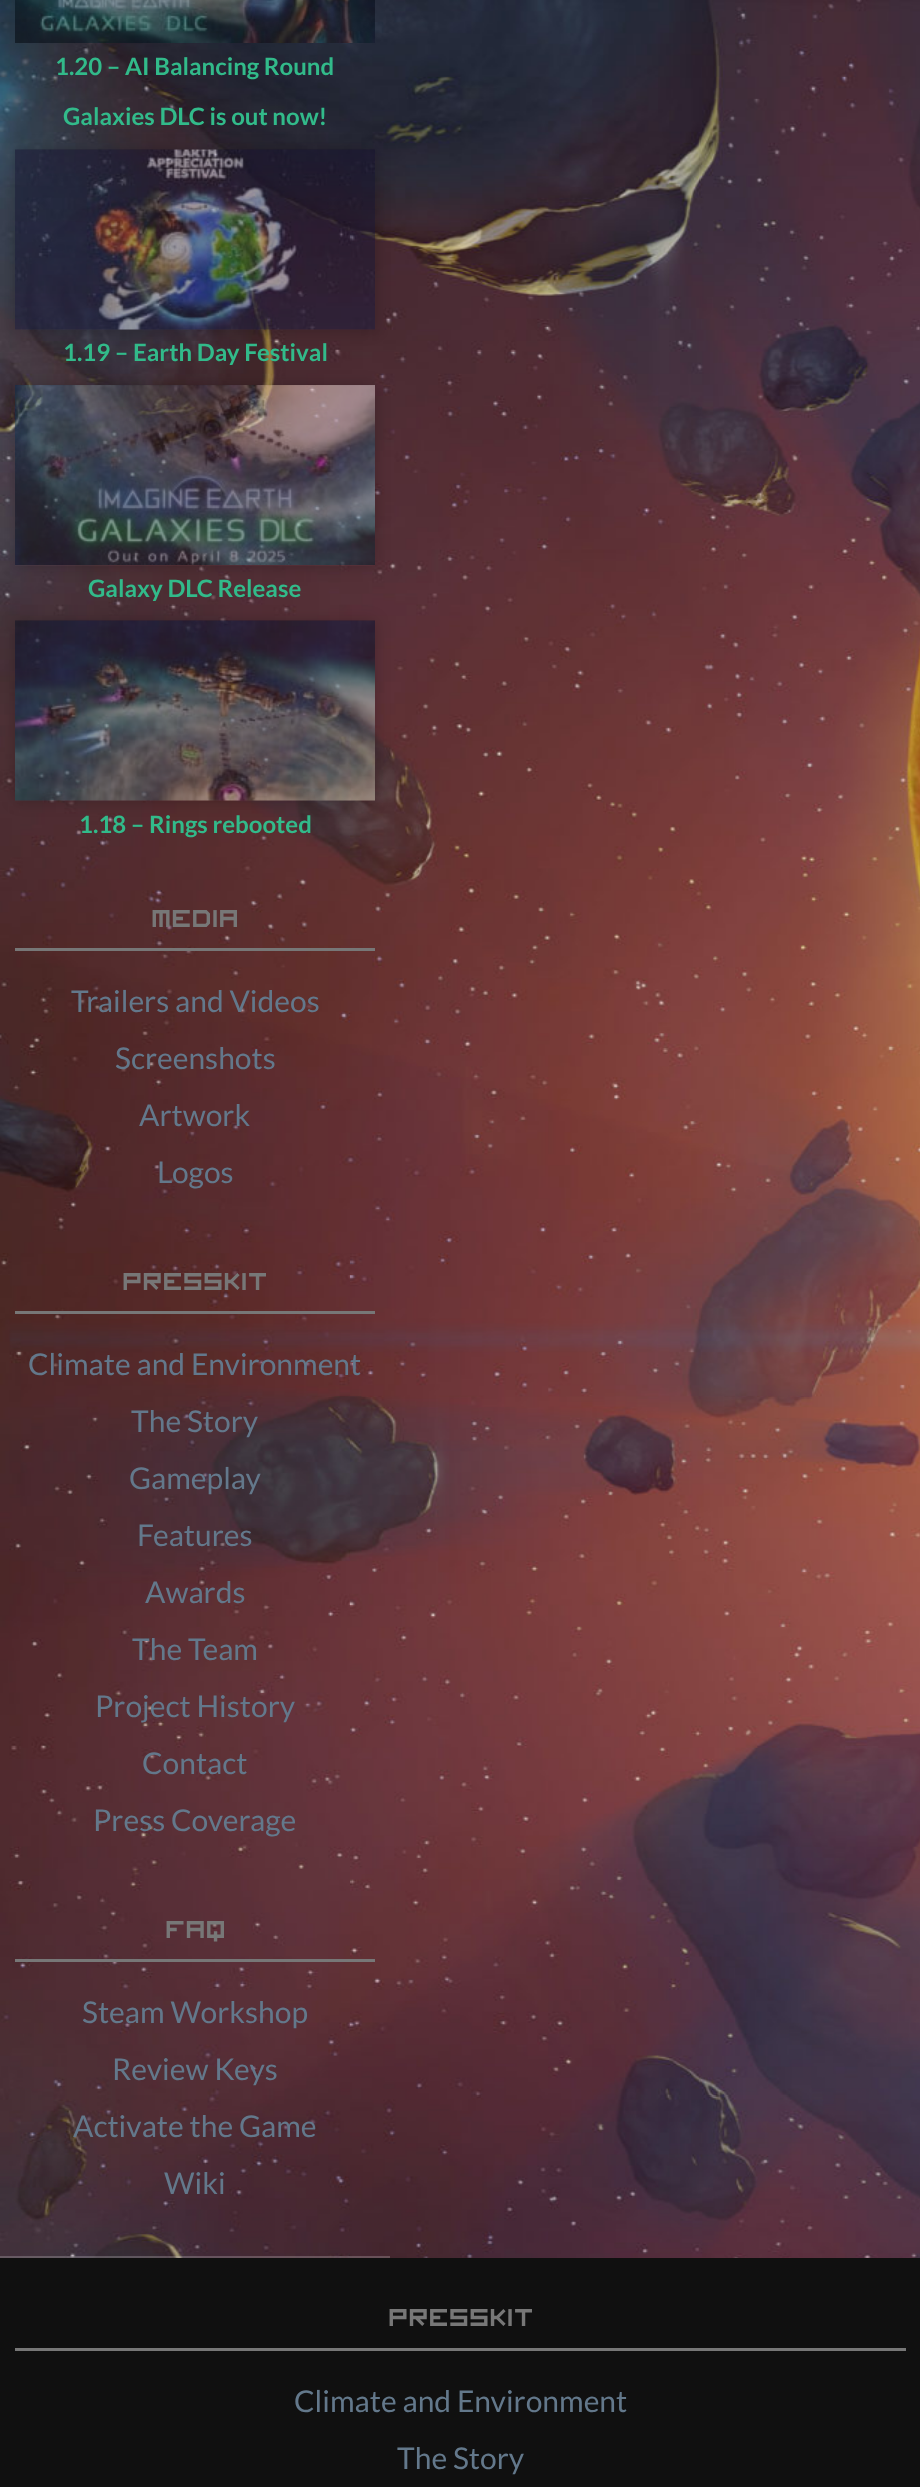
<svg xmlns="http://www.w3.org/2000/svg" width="920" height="2487">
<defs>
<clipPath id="clip1"><path d="M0 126h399v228h-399zm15 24h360v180h-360z" clip-rule="evenodd"/></clipPath>
<clipPath id="clip2"><path d="M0 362h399v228h-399zm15 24h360v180h-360z" clip-rule="evenodd"/></clipPath>
<clipPath id="clip3"><path d="M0 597h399v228h-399zm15 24h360v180h-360z" clip-rule="evenodd"/></clipPath>
</defs>
<rect width="100%" height="100%" fill="#fff"/>
<image x="0" y="0" width="920" height="2258" href="media/1.png"/>
<rect y="2256" width="390" height="2" fill="#ffffff33"/>
<image x="15" y="0" width="360" height="43" href="media/2.png"/>
<text x="55" y="75" style="font-family:Lato;font-size:24px;font-weight:bold;fill:#32ba8a">1.20 – AI Balancing Round</text>
<text x="63" y="125" style="font-family:Lato;font-size:24px;font-weight:bold;fill:#32ba8a">Galaxies DLC is out now!</text>
<g clip-path="url(#clip1)">
<rect x="15" y="150" width="360" height="180" fill="#00000033" filter="blur(7.5px)"/>
</g>
<image x="15" y="149" width="360" height="181" href="media/3.png"/>
<text x="63" y="361" style="font-family:Lato;font-size:24px;font-weight:bold;fill:#32ba8a">1.19 – Earth Day Festival</text>
<g clip-path="url(#clip2)">
<rect x="15" y="386" width="360" height="180" fill="#00000033" filter="blur(7.5px)"/>
</g>
<image x="15" y="385" width="360" height="180" href="media/4.png"/>
<text x="88" y="597" style="font-family:Lato;font-size:24px;font-weight:bold;fill:#32ba8a">Galaxy DLC Release</text>
<g clip-path="url(#clip3)">
<rect x="15" y="621" width="360" height="180" fill="#00000033" filter="blur(7.5px)"/>
</g>
<image x="15" y="620" width="360" height="181" href="media/5.png"/>
<text x="79" y="833" style="font-family:Lato;font-size:24px;font-weight:bold;fill:#32ba8a">1.18 – Rings rebooted</text>
<rect x="15" y="948" width="360" height="3" fill="#777"/>
<text x="151" y="927" style="font-family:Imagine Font;font-size:33px;fill:#777">Media</text>
<text x="71" y="1012" style="font-family:Lato;font-size:30px;fill:#63788b">Trailers and Videos</text>
<text x="115" y="1069" style="font-family:Lato;font-size:30px;fill:#63788b">Screenshots</text>
<text x="139" y="1126" style="font-family:Lato;font-size:30px;fill:#63788b">Artwork</text>
<text x="157" y="1183" style="font-family:Lato;font-size:30px;fill:#63788b">Logos</text>
<rect x="15" y="1311" width="360" height="3" fill="#777"/>
<text x="122" y="1290" style="font-family:Imagine Font;font-size:33px;fill:#777">Presskit</text>
<text x="28" y="1375" style="font-family:Lato;font-size:30px;fill:#63788b">Climate and Environment</text>
<text x="131" y="1432" style="font-family:Lato;font-size:30px;fill:#63788b">The Story</text>
<text x="129" y="1489" style="font-family:Lato;font-size:30px;fill:#63788b">Gameplay</text>
<text x="137" y="1546" style="font-family:Lato;font-size:30px;fill:#63788b">Features</text>
<text x="145" y="1603" style="font-family:Lato;font-size:30px;fill:#63788b">Awards</text>
<text x="132" y="1660" style="font-family:Lato;font-size:30px;fill:#63788b">The Team</text>
<text x="95" y="1717" style="font-family:Lato;font-size:30px;fill:#63788b">Project History</text>
<text x="142" y="1774" style="font-family:Lato;font-size:30px;fill:#63788b">Contact</text>
<text x="93" y="1831" style="font-family:Lato;font-size:30px;fill:#63788b">Press Coverage</text>
<rect x="15" y="1959" width="360" height="3" fill="#777"/>
<text x="165" y="1938" style="font-family:Imagine Font;font-size:33px;fill:#777">FAQ</text>
<text x="82" y="2023" style="font-family:Lato;font-size:30px;fill:#63788b">Steam Workshop</text>
<text x="112" y="2080" style="font-family:Lato;font-size:30px;fill:#63788b">Review Keys</text>
<text x="73" y="2137" style="font-family:Lato;font-size:30px;fill:#63788b">Activate the Game</text>
<text x="164" y="2194" style="font-family:Lato;font-size:30px;fill:#63788b">Wiki</text>
<rect y="2258" width="920" height="229" fill="#101010"/>
<rect x="15" y="2348" width="891" height="3" fill="#777"/>
<text x="388" y="2326" style="font-family:Imagine Font;font-size:33px;fill:#777">Presskit</text>
<text x="294" y="2412" style="font-family:Lato;font-size:30px;fill:#63788b">Climate and Environment</text>
<text x="397" y="2469" style="font-family:Lato;font-size:30px;fill:#63788b">The Story</text>
</svg>
